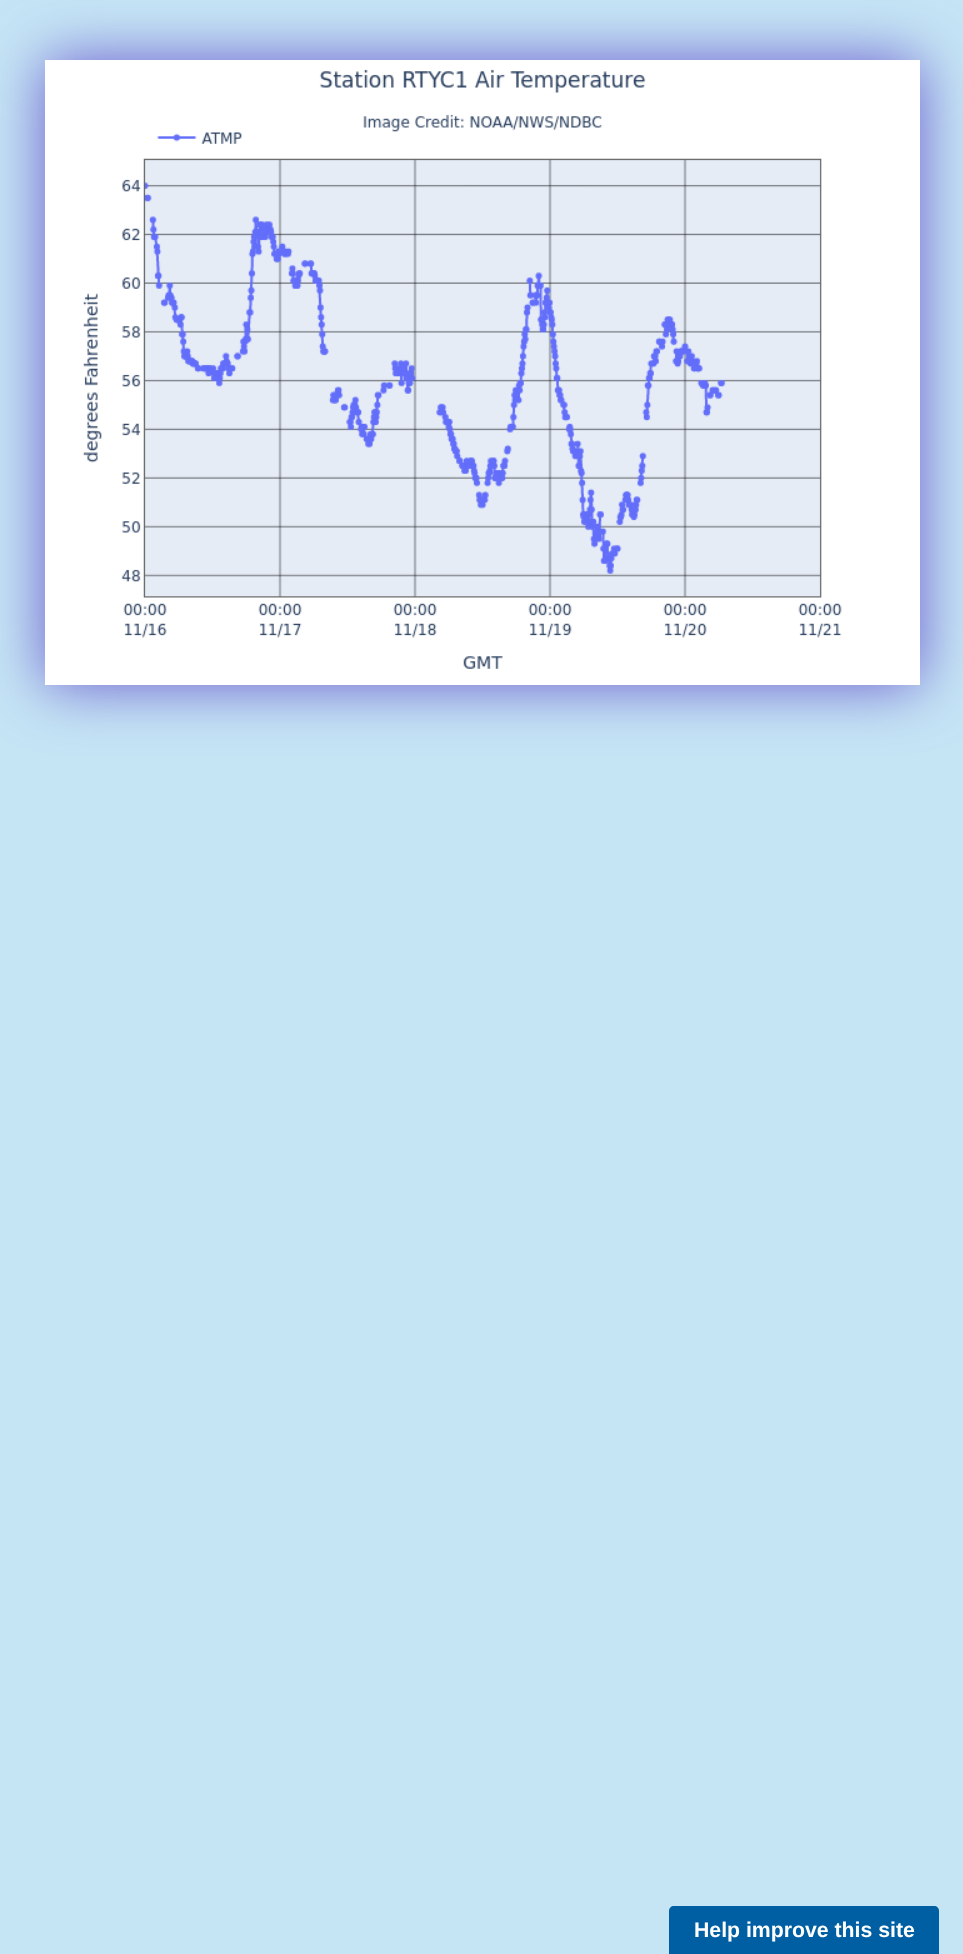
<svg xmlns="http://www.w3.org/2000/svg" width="963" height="1954">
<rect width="100%" height="100%" fill="#c5e5f5"/>
<rect x="45" y="60" width="875" height="625" fill="#6a5acd" filter="blur(30px)"/>
<image x="45" y="60" width="875" height="625" href="media/1.png"/>
<path d="M674 1906h260c3 0 5 2 5 5v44h-270v-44c0-3 2-5 5-5z" fill="#005ea2"/>
<text x="694" y="1937" style="font-family:Liberation Sans;font-size:21.25px;font-weight:bold;fill:#fff">Help improve this site</text>
</svg>
